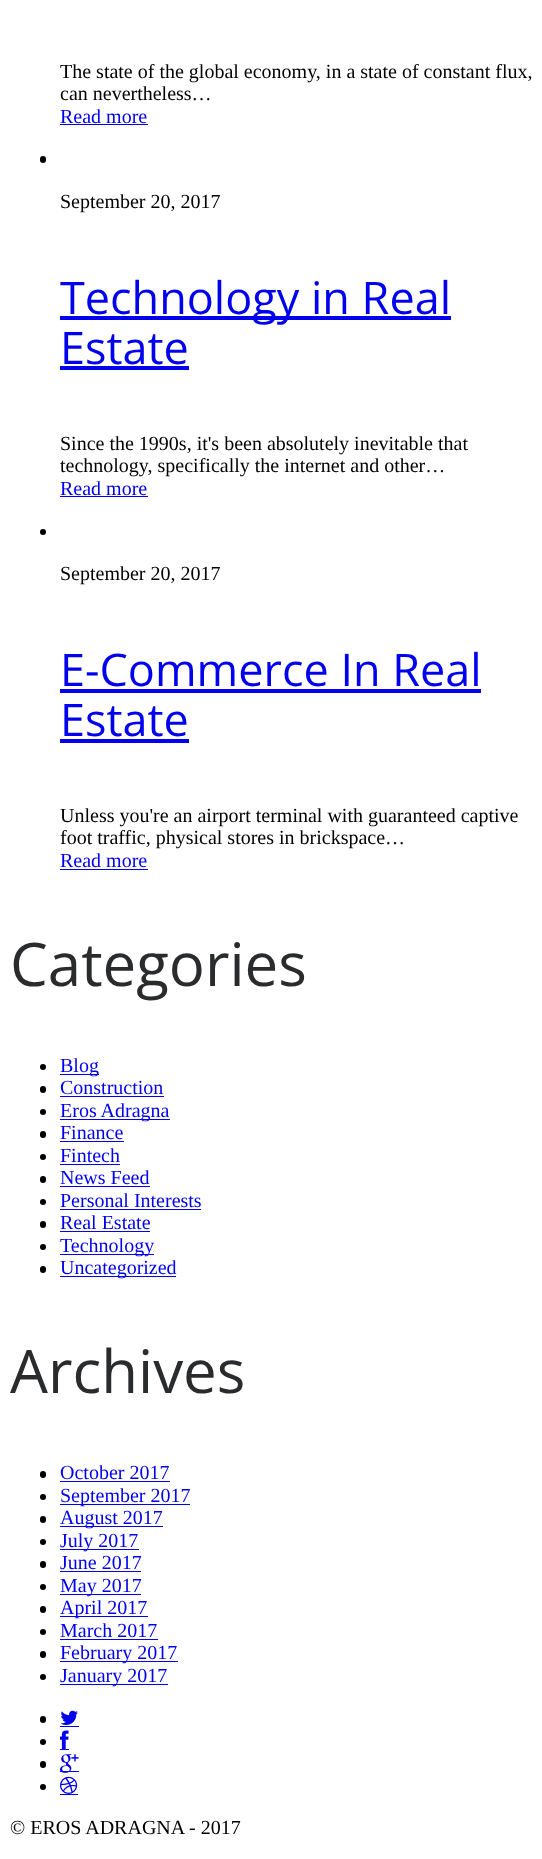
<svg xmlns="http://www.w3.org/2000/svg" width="542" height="1859">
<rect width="100%" height="100%" fill="#fff"/>
<text x="60" y="78" style="font-family:Liberation Serif;font-size:20px;fill:#000">The state of the global economy, in a state of constant flux,</text>
<text x="60" y="100" style="font-family:Liberation Serif;font-size:20px;fill:#000">can nevertheless…</text>
<text x="60" y="123" style="font-family:Liberation Serif;font-size:20px;fill:#00e">Read more</text>
<rect x="60" y="124" width="88" height="1" fill="#00e"/>
<rect x="40" y="156" width="6" height="7" rx="3" fill="#000"/>
<text x="60" y="208" style="font-family:Liberation Serif;font-size:20px;fill:#000">September 20, 2017</text>
<rect x="60" y="316" width="391" height="4" fill="#00e"/>
<text x="60" y="314" style="font-family:Open Sans;font-size:45px;fill:#00e">Technology in Real</text>
<text x="60" y="364" style="font-family:Open Sans;font-size:45px;fill:#00e">Estate</text>
<rect x="60" y="366" width="129" height="4" fill="#00e"/>
<text x="60" y="450" style="font-family:Liberation Serif;font-size:20px;fill:#000">Since the 1990s, it's been absolutely inevitable that</text>
<text x="60" y="472" style="font-family:Liberation Serif;font-size:20px;fill:#000">technology, specifically the internet and other…</text>
<text x="60" y="495" style="font-family:Liberation Serif;font-size:20px;fill:#00e">Read more</text>
<rect x="60" y="496" width="88" height="1" fill="#00e"/>
<circle cx="43" cy="532" r="3" fill="#000"/>
<text x="60" y="580" style="font-family:Liberation Serif;font-size:20px;fill:#000">September 20, 2017</text>
<text x="60" y="686" style="font-family:Open Sans;font-size:45px;fill:#00e">E-Commerce In Real</text>
<rect x="60" y="689" width="421" height="4" fill="#00e"/>
<text x="60" y="736" style="font-family:Open Sans;font-size:45px;fill:#00e">Estate</text>
<rect x="60" y="739" width="129" height="4" fill="#00e"/>
<text x="60" y="822" style="font-family:Liberation Serif;font-size:20px;fill:#000">Unless you're an airport terminal with guaranteed captive</text>
<text x="60" y="844" style="font-family:Liberation Serif;font-size:20px;fill:#000">foot traffic, physical stores in brickspace…</text>
<text x="60" y="867" style="font-family:Liberation Serif;font-size:20px;fill:#00e">Read more</text>
<rect x="60" y="869" width="88" height="1" fill="#00e"/>
<text x="10" y="986" style="font-family:Open Sans;font-size:60px;fill:#2a2b2c">Categories</text>
<circle cx="43" cy="1067" r="3" fill="#000"/>
<rect x="60" y="1074" width="39" height="1" fill="#00e"/>
<text x="60" y="1072" style="font-family:Liberation Serif;font-size:20px;fill:#00e">Blog</text>
<rect x="40" y="1086" width="6" height="7" rx="3" fill="#000"/>
<text x="60" y="1094" style="font-family:Liberation Serif;font-size:20px;fill:#00e">Construction</text>
<rect x="60" y="1096" width="104" height="1" fill="#00e"/>
<circle cx="43" cy="1112" r="3" fill="#000"/>
<rect x="60" y="1119" width="110" height="1" fill="#00e"/>
<text x="60" y="1117" style="font-family:Liberation Serif;font-size:20px;fill:#00e">Eros Adragna</text>
<rect x="40" y="1131" width="6" height="7" rx="3" fill="#000"/>
<text x="60" y="1139" style="font-family:Liberation Serif;font-size:20px;fill:#00e">Finance</text>
<rect x="60" y="1141" width="64" height="1" fill="#00e"/>
<circle cx="43" cy="1157" r="3" fill="#000"/>
<text x="60" y="1162" style="font-family:Liberation Serif;font-size:20px;fill:#00e">Fintech</text>
<rect x="60" y="1164" width="60" height="1" fill="#00e"/>
<rect x="40" y="1176" width="6" height="7" rx="3" fill="#000"/>
<text x="60" y="1184" style="font-family:Liberation Serif;font-size:20px;fill:#00e">News Feed</text>
<rect x="60" y="1186" width="90" height="1" fill="#00e"/>
<circle cx="43" cy="1202" r="3" fill="#000"/>
<text x="60" y="1207" style="font-family:Liberation Serif;font-size:20px;fill:#00e">Personal Interests</text>
<rect x="60" y="1209" width="141" height="1" fill="#00e"/>
<rect x="40" y="1221" width="6" height="7" rx="3" fill="#000"/>
<text x="60" y="1229" style="font-family:Liberation Serif;font-size:20px;fill:#00e">Real Estate</text>
<rect x="60" y="1231" width="90" height="1" fill="#00e"/>
<circle cx="43" cy="1247" r="3" fill="#000"/>
<rect x="60" y="1254" width="94" height="1" fill="#00e"/>
<text x="60" y="1252" style="font-family:Liberation Serif;font-size:20px;fill:#00e">Technology</text>
<rect x="40" y="1266" width="6" height="7" rx="3" fill="#000"/>
<rect x="60" y="1276" width="116" height="1" fill="#00e"/>
<text x="60" y="1274" style="font-family:Liberation Serif;font-size:20px;fill:#00e">Uncategorized</text>
<text x="10" y="1393" style="font-family:Open Sans;font-size:60px;fill:#2a2b2c">Archives</text>
<rect x="40" y="1471" width="6" height="7" rx="3" fill="#000"/>
<text x="60" y="1479" style="font-family:Liberation Serif;font-size:20px;fill:#00e">October 2017</text>
<rect x="60" y="1481" width="110" height="1" fill="#00e"/>
<circle cx="43" cy="1497" r="3" fill="#000"/>
<rect x="60" y="1504" width="130" height="1" fill="#00e"/>
<text x="60" y="1502" style="font-family:Liberation Serif;font-size:20px;fill:#00e">September 2017</text>
<rect x="40" y="1516" width="6" height="7" rx="3" fill="#000"/>
<rect x="60" y="1526" width="103" height="1" fill="#00e"/>
<text x="60" y="1524" style="font-family:Liberation Serif;font-size:20px;fill:#00e">August 2017</text>
<circle cx="43" cy="1542" r="3" fill="#000"/>
<rect x="60" y="1549" width="79" height="1" fill="#00e"/>
<text x="60" y="1547" style="font-family:Liberation Serif;font-size:20px;fill:#00e">July 2017</text>
<rect x="40" y="1561" width="6" height="7" rx="3" fill="#000"/>
<text x="60" y="1569" style="font-family:Liberation Serif;font-size:20px;fill:#00e">June 2017</text>
<rect x="60" y="1571" width="81" height="1" fill="#00e"/>
<circle cx="43" cy="1587" r="3" fill="#000"/>
<rect x="60" y="1594" width="81" height="1" fill="#00e"/>
<text x="60" y="1592" style="font-family:Liberation Serif;font-size:20px;fill:#00e">May 2017</text>
<rect x="40" y="1606" width="6" height="7" rx="3" fill="#000"/>
<rect x="60" y="1616" width="88" height="1" fill="#00e"/>
<text x="60" y="1614" style="font-family:Liberation Serif;font-size:20px;fill:#00e">April 2017</text>
<circle cx="43" cy="1632" r="3" fill="#000"/>
<text x="60" y="1637" style="font-family:Liberation Serif;font-size:20px;fill:#00e">March 2017</text>
<rect x="60" y="1639" width="98" height="1" fill="#00e"/>
<rect x="40" y="1651" width="6" height="7" rx="3" fill="#000"/>
<rect x="60" y="1661" width="118" height="1" fill="#00e"/>
<text x="60" y="1659" style="font-family:Liberation Serif;font-size:20px;fill:#00e">February 2017</text>
<circle cx="43" cy="1677" r="3" fill="#000"/>
<rect x="60" y="1684" width="108" height="1" fill="#00e"/>
<text x="60" y="1682" style="font-family:Liberation Serif;font-size:20px;fill:#00e">January 2017</text>
<rect x="40" y="1716" width="6" height="7" rx="3" fill="#000"/>
<rect x="60" y="1726" width="19" height="1" fill="#00e"/>
<image x="60" y="1710" width="18" height="15" href="media/1.png"/>
<circle cx="43" cy="1742" r="3" fill="#000"/>
<rect x="60" y="1749" width="9" height="1" fill="#00e"/>
<image x="60" y="1730" width="9" height="19" href="media/2.png"/>
<rect x="40" y="1761" width="6" height="7" rx="3" fill="#000"/>
<rect x="60" y="1771" width="19" height="1" fill="#00e"/>
<image x="60" y="1754" width="19" height="19" href="media/3.png"/>
<circle cx="43" cy="1787" r="3" fill="#000"/>
<rect x="60" y="1794" width="18" height="1" fill="#00e"/>
<image x="60" y="1776" width="18" height="18" href="media/4.png"/>
<text x="10" y="1834" style="font-family:Liberation Serif;font-size:20px;fill:#000">© EROS ADRAGNA - 2017</text>
</svg>
